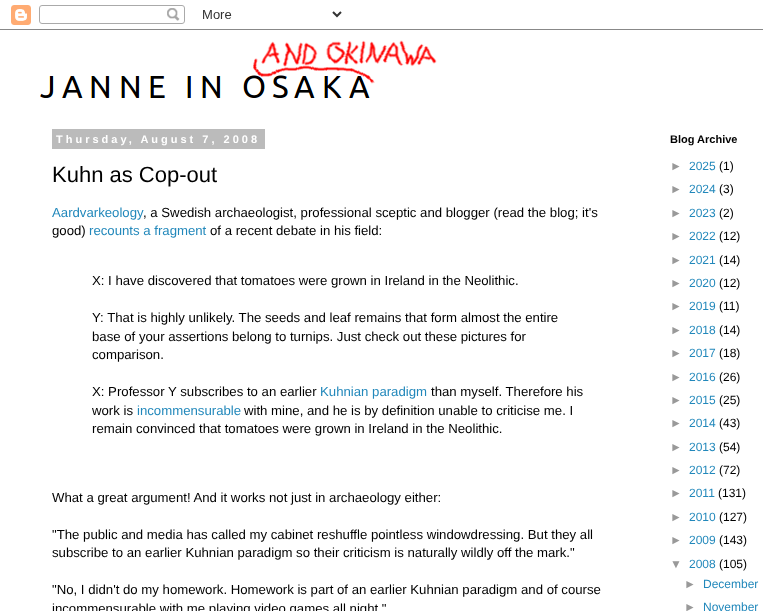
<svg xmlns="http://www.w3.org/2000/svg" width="763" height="611">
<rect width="100%" height="100%" fill="#fff"/>
<image x="0" y="5" width="763" height="25" href="media/1.png"/>
<image x="40" y="40" width="397" height="58" href="media/2.png"/>
<rect x="52" y="129" width="213" height="20" fill="#bbb"/>
<text x="56" y="143" style="font-family:Liberation Sans;font-size:11px;font-weight:bold;letter-spacing:3px;fill:#fff">Thursday, August 7, 2008</text>
<text x="52" y="182" style="font-family:Liberation Sans;font-size:22px;fill:#000">Kuhn as Cop-out</text>
<text x="52" y="217" style="font-family:Liberation Sans;font-size:13.2px;fill:#28b">Aardvarkeology</text>
<text x="143" y="217" style="font-family:Liberation Sans;font-size:13.2px;fill:#000">, a Swedish archaeologist, professional sceptic and blogger (read the blog; it's</text>
<text x="52" y="235" style="font-family:Liberation Sans;font-size:13.2px;fill:#000">good)</text>
<text x="89" y="235" style="font-family:Liberation Sans;font-size:13.2px;fill:#28b">recounts a fragment</text>
<text x="210" y="235" style="font-family:Liberation Sans;font-size:13.2px;fill:#000">of a recent debate in his field:</text>
<text x="92" y="285" style="font-family:Liberation Sans;font-size:13.2px;fill:#000">X: I have discovered that tomatoes were grown in Ireland in the Neolithic.</text>
<text x="92" y="322" style="font-family:Liberation Sans;font-size:13.2px;fill:#000">Y: That is highly unlikely. The seeds and leaf remains that form almost the entire</text>
<text x="92" y="341" style="font-family:Liberation Sans;font-size:13.2px;fill:#000">base of your assertions belong to turnips. Just check out these pictures for</text>
<text x="92" y="359" style="font-family:Liberation Sans;font-size:13.2px;fill:#000">comparison.</text>
<text x="92" y="396" style="font-family:Liberation Sans;font-size:13.2px;fill:#000">X: Professor Y subscribes to an earlier</text>
<text x="320" y="396" style="font-family:Liberation Sans;font-size:13.2px;fill:#28b">Kuhnian paradigm</text>
<text x="431" y="396" style="font-family:Liberation Sans;font-size:13.2px;fill:#000">than myself. Therefore his</text>
<text x="92" y="415" style="font-family:Liberation Sans;font-size:13.2px;fill:#000">work is</text>
<text x="137" y="415" style="font-family:Liberation Sans;font-size:13.2px;fill:#28b">incommensurable</text>
<text x="244" y="415" style="font-family:Liberation Sans;font-size:13.2px;fill:#000">with mine, and he is by definition unable to criticise me. I</text>
<text x="92" y="433" style="font-family:Liberation Sans;font-size:13.2px;fill:#000">remain convinced that tomatoes were grown in Ireland in the Neolithic.</text>
<text x="52" y="502" style="font-family:Liberation Sans;font-size:13.2px;fill:#000">What a great argument! And it works not just in archaeology either:</text>
<text x="52" y="539" style="font-family:Liberation Sans;font-size:13.2px;fill:#000">"The public and media has called my cabinet reshuffle pointless windowdressing. But they all</text>
<text x="52" y="557" style="font-family:Liberation Sans;font-size:13.2px;fill:#000">subscribe to an earlier Kuhnian paradigm so their criticism is naturally wildly off the mark."</text>
<text x="52" y="594" style="font-family:Liberation Sans;font-size:13.2px;fill:#000">"No, I didn't do my homework. Homework is part of an earlier Kuhnian paradigm and of course</text>
<text x="52" y="613" style="font-family:Liberation Sans;font-size:13.2px;fill:#000">incommensurable with me playing video games all night."</text>
<text x="670" y="143" style="font-family:Liberation Sans;font-size:11px;font-weight:bold;fill:#000">Blog Archive</text>
<text x="670" y="170" style="font-family:Liberation Sans;font-size:12px;fill:#999">►</text>
<text x="689" y="170" style="font-family:Liberation Sans;font-size:12px;fill:#28b">2025</text>
<text x="719" y="170" style="font-family:Liberation Sans;font-size:12px;fill:#000">(1)</text>
<text x="670" y="193" style="font-family:Liberation Sans;font-size:12px;fill:#999">►</text>
<text x="689" y="193" style="font-family:Liberation Sans;font-size:12px;fill:#28b">2024</text>
<text x="719" y="193" style="font-family:Liberation Sans;font-size:12px;fill:#000">(3)</text>
<text x="670" y="217" style="font-family:Liberation Sans;font-size:12px;fill:#999">►</text>
<text x="689" y="217" style="font-family:Liberation Sans;font-size:12px;fill:#28b">2023</text>
<text x="719" y="217" style="font-family:Liberation Sans;font-size:12px;fill:#000">(2)</text>
<text x="670" y="240" style="font-family:Liberation Sans;font-size:12px;fill:#999">►</text>
<text x="689" y="240" style="font-family:Liberation Sans;font-size:12px;fill:#28b">2022</text>
<text x="719" y="240" style="font-family:Liberation Sans;font-size:12px;fill:#000">(12)</text>
<text x="670" y="264" style="font-family:Liberation Sans;font-size:12px;fill:#999">►</text>
<text x="689" y="264" style="font-family:Liberation Sans;font-size:12px;fill:#28b">2021</text>
<text x="719" y="264" style="font-family:Liberation Sans;font-size:12px;fill:#000">(14)</text>
<text x="670" y="287" style="font-family:Liberation Sans;font-size:12px;fill:#999">►</text>
<text x="689" y="287" style="font-family:Liberation Sans;font-size:12px;fill:#28b">2020</text>
<text x="719" y="287" style="font-family:Liberation Sans;font-size:12px;fill:#000">(12)</text>
<text x="670" y="310" style="font-family:Liberation Sans;font-size:12px;fill:#999">►</text>
<text x="689" y="310" style="font-family:Liberation Sans;font-size:12px;fill:#28b">2019</text>
<text x="719" y="310" style="font-family:Liberation Sans;font-size:12px;fill:#000">(11)</text>
<text x="670" y="334" style="font-family:Liberation Sans;font-size:12px;fill:#999">►</text>
<text x="689" y="334" style="font-family:Liberation Sans;font-size:12px;fill:#28b">2018</text>
<text x="719" y="334" style="font-family:Liberation Sans;font-size:12px;fill:#000">(14)</text>
<text x="670" y="357" style="font-family:Liberation Sans;font-size:12px;fill:#999">►</text>
<text x="689" y="357" style="font-family:Liberation Sans;font-size:12px;fill:#28b">2017</text>
<text x="719" y="357" style="font-family:Liberation Sans;font-size:12px;fill:#000">(18)</text>
<text x="670" y="381" style="font-family:Liberation Sans;font-size:12px;fill:#999">►</text>
<text x="689" y="381" style="font-family:Liberation Sans;font-size:12px;fill:#28b">2016</text>
<text x="719" y="381" style="font-family:Liberation Sans;font-size:12px;fill:#000">(26)</text>
<text x="670" y="404" style="font-family:Liberation Sans;font-size:12px;fill:#999">►</text>
<text x="689" y="404" style="font-family:Liberation Sans;font-size:12px;fill:#28b">2015</text>
<text x="719" y="404" style="font-family:Liberation Sans;font-size:12px;fill:#000">(25)</text>
<text x="670" y="427" style="font-family:Liberation Sans;font-size:12px;fill:#999">►</text>
<text x="689" y="427" style="font-family:Liberation Sans;font-size:12px;fill:#28b">2014</text>
<text x="719" y="427" style="font-family:Liberation Sans;font-size:12px;fill:#000">(43)</text>
<text x="670" y="451" style="font-family:Liberation Sans;font-size:12px;fill:#999">►</text>
<text x="689" y="451" style="font-family:Liberation Sans;font-size:12px;fill:#28b">2013</text>
<text x="719" y="451" style="font-family:Liberation Sans;font-size:12px;fill:#000">(54)</text>
<text x="670" y="474" style="font-family:Liberation Sans;font-size:12px;fill:#999">►</text>
<text x="689" y="474" style="font-family:Liberation Sans;font-size:12px;fill:#28b">2012</text>
<text x="719" y="474" style="font-family:Liberation Sans;font-size:12px;fill:#000">(72)</text>
<text x="670" y="497" style="font-family:Liberation Sans;font-size:12px;fill:#999">►</text>
<text x="689" y="497" style="font-family:Liberation Sans;font-size:12px;fill:#28b">2011</text>
<text x="718" y="497" style="font-family:Liberation Sans;font-size:12px;fill:#000">(131)</text>
<text x="670" y="521" style="font-family:Liberation Sans;font-size:12px;fill:#999">►</text>
<text x="689" y="521" style="font-family:Liberation Sans;font-size:12px;fill:#28b">2010</text>
<text x="719" y="521" style="font-family:Liberation Sans;font-size:12px;fill:#000">(127)</text>
<text x="670" y="544" style="font-family:Liberation Sans;font-size:12px;fill:#999">►</text>
<text x="689" y="544" style="font-family:Liberation Sans;font-size:12px;fill:#28b">2009</text>
<text x="719" y="544" style="font-family:Liberation Sans;font-size:12px;fill:#000">(143)</text>
<text x="670" y="568" style="font-family:Liberation Sans;font-size:12px;fill:#999">▼</text>
<text x="689" y="568" style="font-family:Liberation Sans;font-size:12px;fill:#28b">2008</text>
<text x="719" y="568" style="font-family:Liberation Sans;font-size:12px;fill:#000">(105)</text>
<text x="684" y="588" style="font-family:Liberation Sans;font-size:12px;fill:#999">►</text>
<text x="703" y="588" style="font-family:Liberation Sans;font-size:12px;fill:#28b">December</text>
<text x="684" y="611" style="font-family:Liberation Sans;font-size:12px;fill:#999">►</text>
<text x="703" y="611" style="font-family:Liberation Sans;font-size:12px;fill:#28b">November</text>
</svg>
